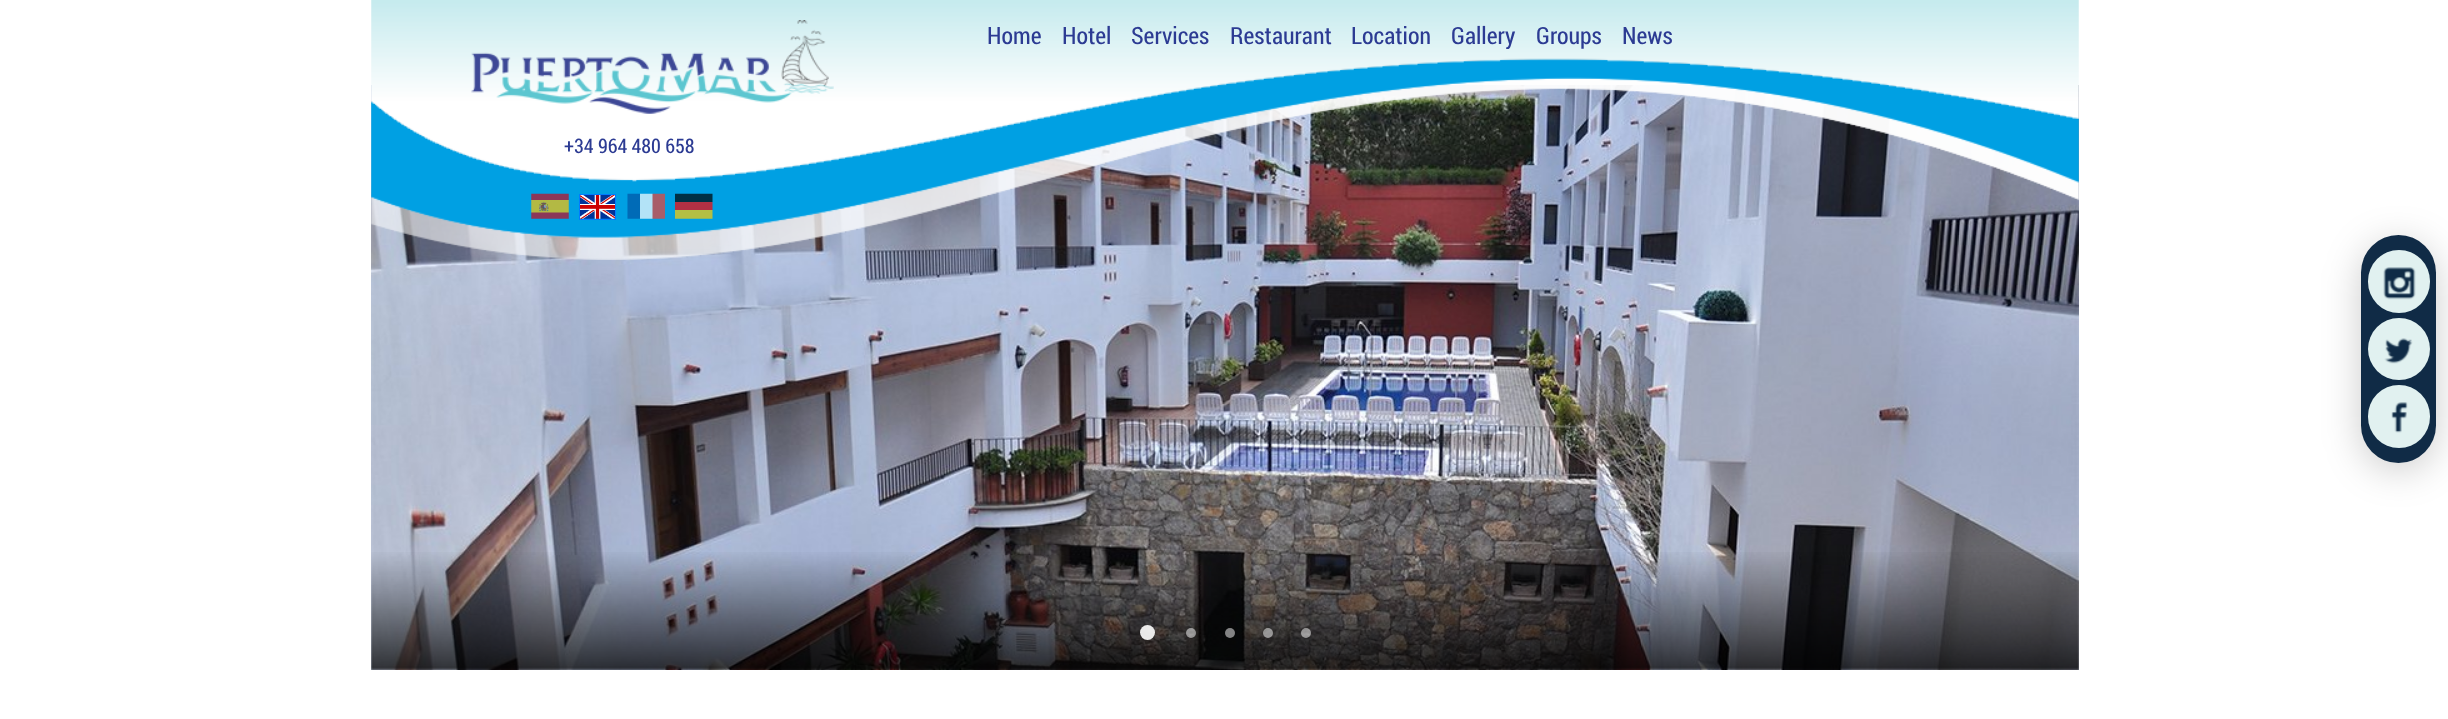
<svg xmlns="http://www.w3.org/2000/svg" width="2448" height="719">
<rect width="100%" height="100%" fill="#fff"/>
<image x="371" y="85" width="1708" height="585" href="media/7.png"/>
<image x="371" y="0" width="1708" height="260" href="media/1.png"/>
<text x="987" y="44" style="font-family:Roboto Condensed;font-size:23.75px;fill:#2c3b93">Home</text>
<text x="1062" y="44" style="font-family:Roboto Condensed;font-size:23.75px;fill:#2c3b93">Hotel</text>
<text x="1131" y="44" style="font-family:Roboto Condensed;font-size:23.75px;fill:#2c3b93">Services</text>
<text x="1230" y="44" style="font-family:Roboto Condensed;font-size:23.75px;fill:#2c3b93">Restaurant</text>
<text x="1351" y="44" style="font-family:Roboto Condensed;font-size:23.75px;fill:#2c3b93">Location</text>
<text x="1451" y="44" style="font-family:Roboto Condensed;font-size:23.75px;fill:#2c3b93">Gallery</text>
<text x="1536" y="44" style="font-family:Roboto Condensed;font-size:23.75px;fill:#2c3b93">Groups</text>
<text x="1622" y="44" style="font-family:Roboto Condensed;font-size:23.75px;fill:#2c3b93">News</text>
<image x="471" y="20" width="363" height="94" href="media/2.png"/>
<text x="564" y="153" style="font-family:Roboto Condensed;font-size:20px;fill:#2c3b93">+34 964 480 658</text>
<image x="531" y="193" width="38" height="26" href="media/3.png"/>
<rect x="579.5" y="194.5" width="36" height="25" fill="none" stroke="#007bff"/>
<image x="627" y="193" width="38" height="26" href="media/4.png"/>
<image x="675" y="193" width="38" height="26" href="media/5.png"/>
<image x="580" y="195" width="35" height="24" href="media/6.png"/>
<image x="371" y="552" width="1708" height="118" href="media/8.png"/>
<circle cx="1147.5" cy="632.5" r="7.5" fill="#ffffffe6"/>
<circle cx="1191" cy="633" r="5" fill="#ffffff80"/>
<circle cx="1230" cy="633" r="5" fill="#838384"/>
<circle cx="1268" cy="633" r="5" fill="#ffffff80"/>
<circle cx="1306" cy="633" r="5" fill="#ffffff80"/>
<rect x="2361" y="243" width="75" height="227" rx="37.5" fill="#00000033" filter="blur(19px)"/>
<rect x="2361" y="235" width="75" height="228" rx="37.5" fill="#102b46"/>
<rect x="2368" y="250" width="62" height="63" rx="31" fill="#e1f1f0"/>
<image x="2383" y="267" width="33" height="33" href="media/9.png"/>
<circle cx="2399" cy="349" r="31" fill="#e1f1f0"/>
<image x="2384" y="338" width="29" height="26" href="media/10.png"/>
<rect x="2368" y="385" width="62" height="63" rx="31" fill="#e1f1f0"/>
<image x="2391" y="402" width="17" height="31" href="media/11.png"/>
</svg>
